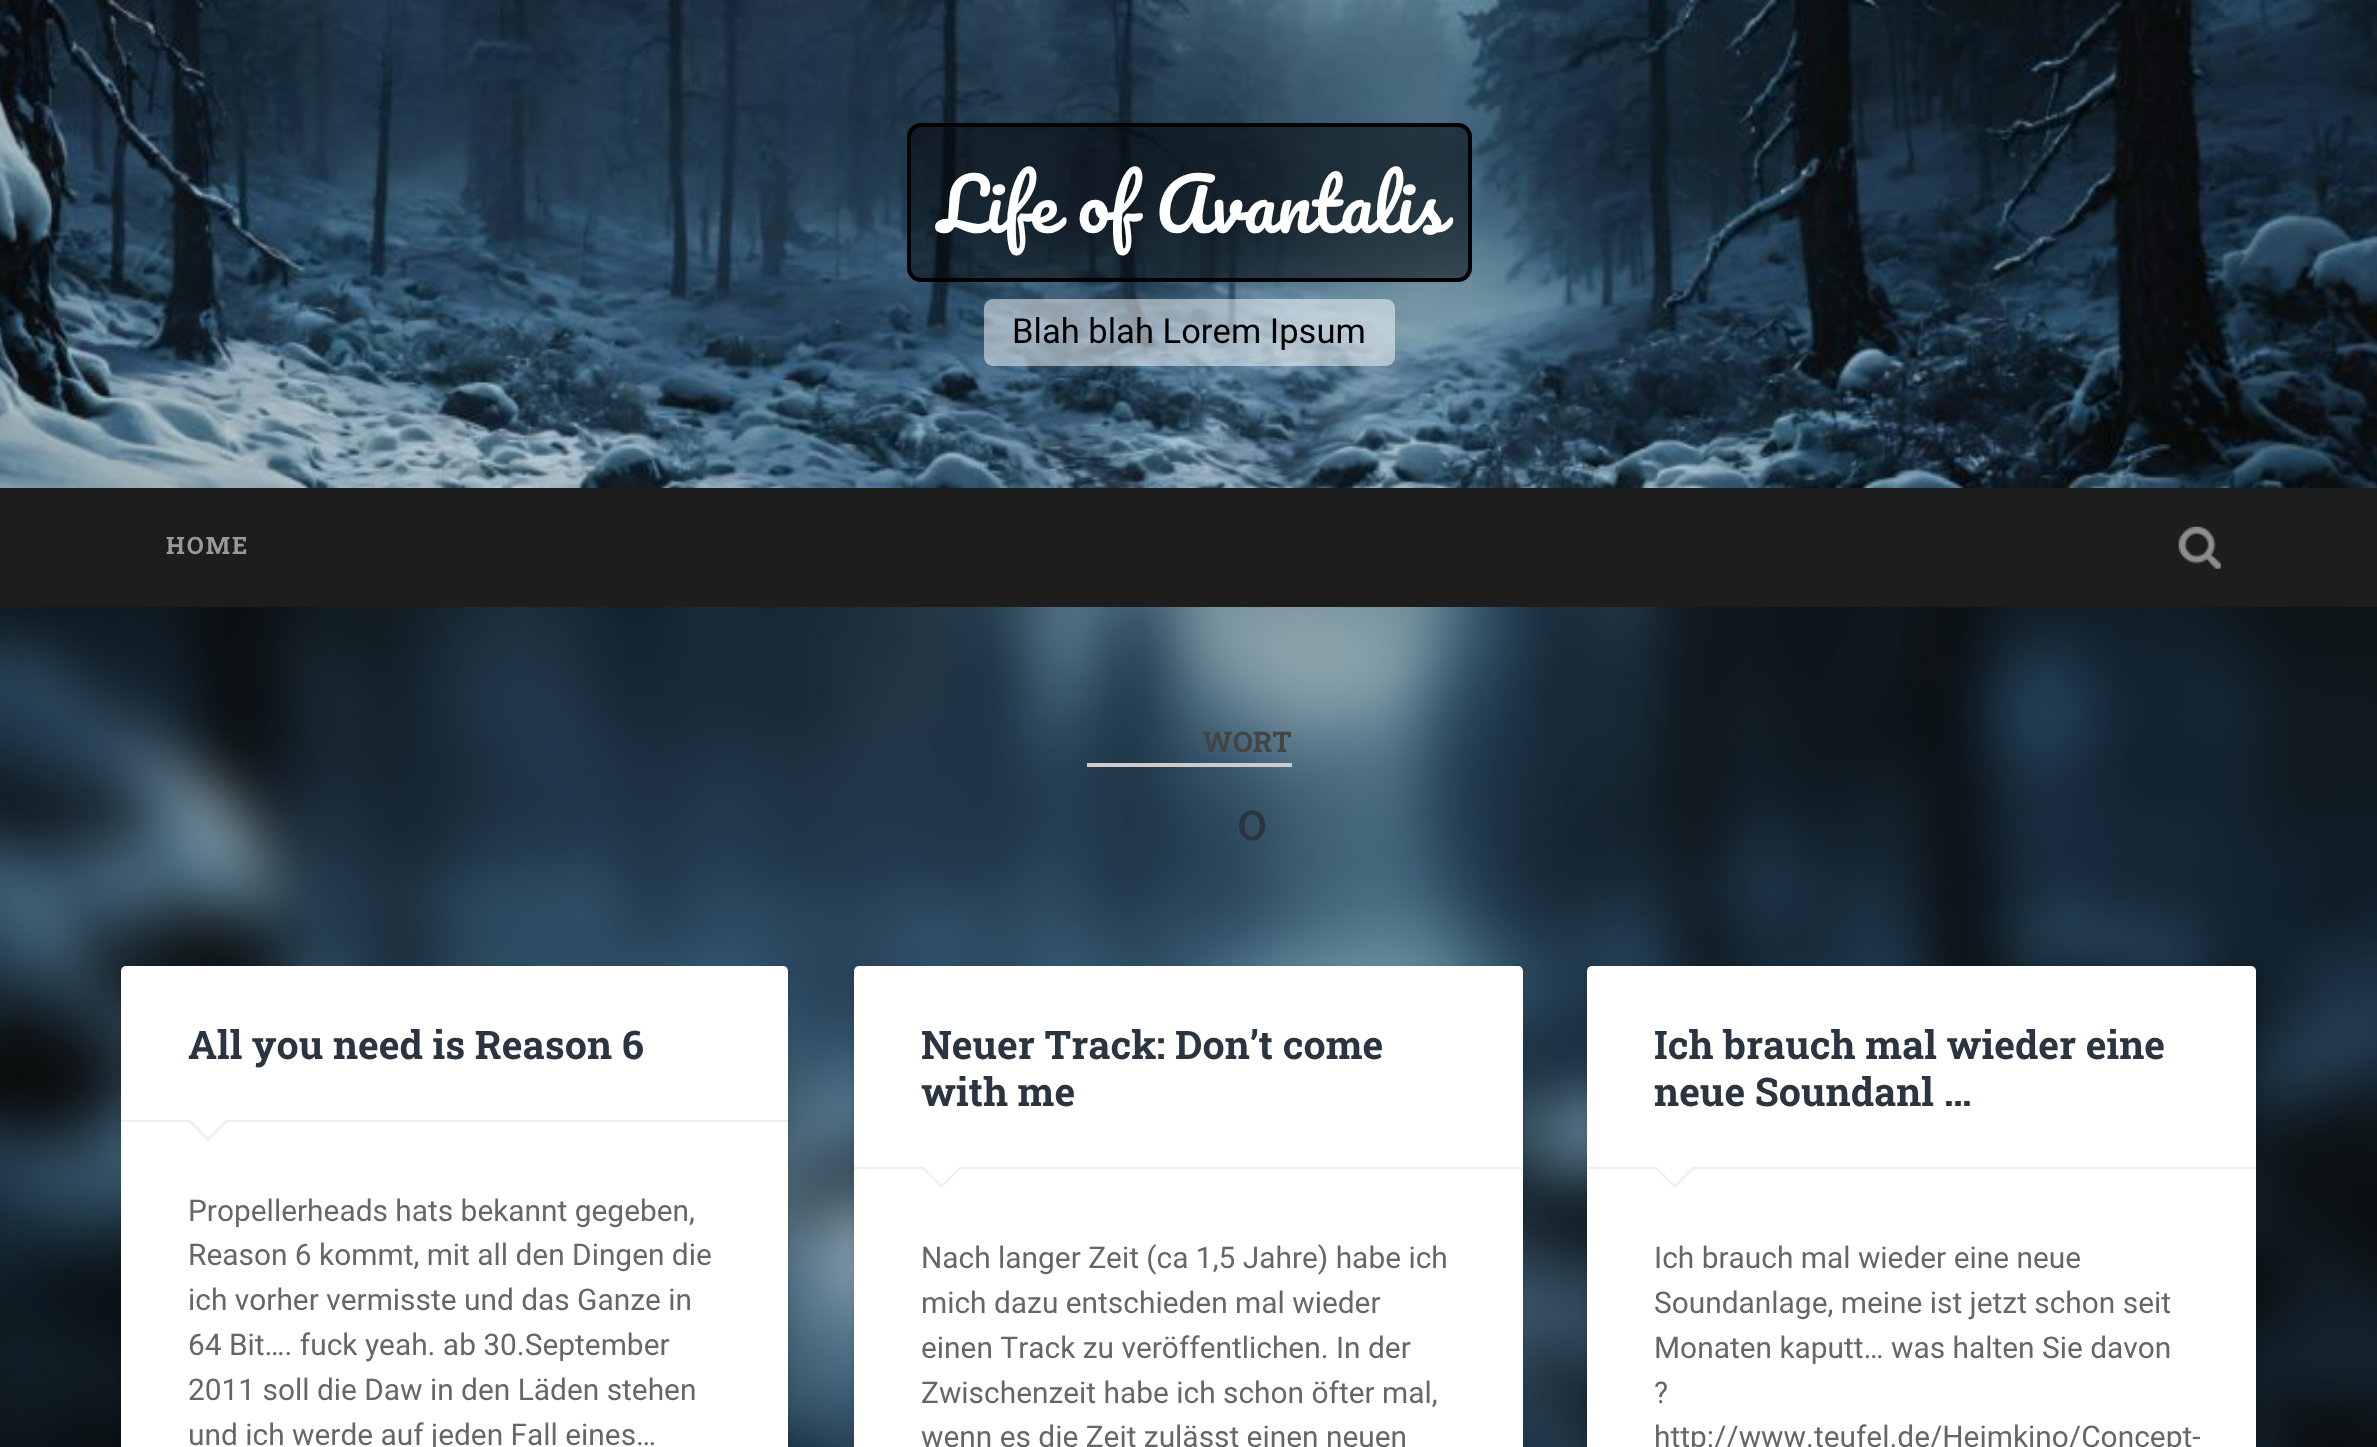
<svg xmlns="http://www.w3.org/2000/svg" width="2377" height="1447">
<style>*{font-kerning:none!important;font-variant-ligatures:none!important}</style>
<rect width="100%" height="100%" fill="#fff"/>
<image x="0" y="607" width="2377" height="840" href="media/1.png"/>
<image x="0" y="0" width="2377" height="488" href="media/2.png"/>
<rect x="909" y="125" width="561" height="155" rx="12" fill="#00000080" stroke="#000" stroke-width="4"/>
<text x="938" y="233" word-spacing="1" style="font-family:Pacifico;font-size:71px;fill:#fff">Life of Avantalis</text>
<rect x="984" y="299" width="411" height="67" rx="9" fill="#ffffff80"/>
<text x="1012" y="343" style="font-family:Roboto;font-size:34.6px;fill:#000">Blah blah Lorem Ipsum</text>
<rect y="488" width="2377" height="119" fill="#1d1d1d"/>
<text x="166" y="554" style="font-family:Roboto Slab;font-size:24px;font-weight:bold;letter-spacing:2px;fill:#999">HOME</text>
<image x="2178" y="526" width="43" height="43" href="media/3.png"/>
<rect x="1087" y="763" width="205" height="4" fill="#ccc"/>
<text x="1202" y="752" style="font-family:Roboto Slab;font-size:28.5px;font-weight:bold;fill:#444">WORT</text>
<text x="1237" y="840" style="font-family:Roboto Slab;font-size:55px;fill:#2b3542">o</text>
<rect x="121" y="968" width="667" height="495" rx="5" fill="#0000001a" filter="blur(3.5px)"/>
<rect x="121" y="966" width="667" height="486" rx="5" fill="#fff"/>
<rect x="121" y="1120" width="667" height="2" fill="#eee"/>
<text x="188" y="1059" style="font-family:Roboto Slab;font-size:39.4px;font-weight:bold;fill:#2b3542">All you need is Reason 6</text>
<path d="M187 1120h42l-21 21z" fill="#eee"/>
<path d="M189 1118h38.5l-19.5 19.5z" fill="#fff"/>
<text x="188" y="1221" style="font-family:Roboto;font-size:29.9px;fill:#666">Propellerheads hats bekannt gegeben,</text>
<text x="188" y="1265" style="font-family:Roboto;font-size:29.9px;fill:#666">Reason 6 kommt, mit all den Dingen die</text>
<text x="188" y="1310" style="font-family:Roboto;font-size:29.9px;fill:#666">ich vorher vermisste und das Ganze in</text>
<text x="188" y="1355" style="font-family:Roboto;font-size:29.9px;fill:#666">64 Bit…. fuck yeah. ab 30.September</text>
<text x="188" y="1400" style="font-family:Roboto;font-size:29.9px;fill:#666">2011 soll die Daw in den Läden stehen</text>
<text x="188" y="1445" style="font-family:Roboto;font-size:29.9px;fill:#666">und ich werde auf jeden Fall eines…</text>
<rect x="854" y="968" width="669" height="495" rx="5" fill="#0000001a" filter="blur(3.5px)"/>
<rect x="854" y="966" width="669" height="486" rx="5" fill="#fff"/>
<rect x="854" y="1167" width="669" height="2" fill="#eee"/>
<text x="921" y="1059" style="font-family:Roboto Slab;font-size:39.4px;font-weight:bold;fill:#2b3542">Neuer Track: Don’t come</text>
<text x="921" y="1106" style="font-family:Roboto Slab;font-size:39.4px;font-weight:bold;fill:#2b3542">with me</text>
<path d="M920 1167h42l-20 21z" fill="#eee"/>
<path d="M922 1165.5h39l-19.5 19.5z" fill="#fff"/>
<text x="921" y="1268" style="font-family:Roboto;font-size:29.9px;fill:#666">Nach langer Zeit (ca 1,5 Jahre) habe ich</text>
<text x="921" y="1313" style="font-family:Roboto;font-size:29.9px;fill:#666">mich dazu entschieden mal wieder</text>
<text x="921" y="1358" style="font-family:Roboto;font-size:29.9px;fill:#666">einen Track zu veröffentlichen. In der</text>
<text x="921" y="1403" style="font-family:Roboto;font-size:29.9px;fill:#666">Zwischenzeit habe ich schon öfter mal,</text>
<text x="921" y="1447" style="font-family:Roboto;font-size:29.9px;fill:#666">wenn es die Zeit zulässt einen neuen</text>
<rect x="1587" y="968" width="669" height="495" rx="5" fill="#0000001a" filter="blur(3.5px)"/>
<rect x="1587" y="966" width="669" height="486" rx="5" fill="#fff"/>
<rect x="1587" y="1167" width="669" height="2" fill="#eee"/>
<text x="1654" y="1059" style="font-family:Roboto Slab;font-size:39.4px;font-weight:bold;fill:#2b3542">Ich brauch mal wieder eine</text>
<text x="1654" y="1106" style="font-family:Roboto Slab;font-size:39.4px;font-weight:bold;fill:#2b3542">neue Soundanl …</text>
<path d="M1654 1167h42l-21 21z" fill="#eee"/>
<path d="M1655.5 1165.5h38.5l-19 19.5z" fill="#fff"/>
<text x="1654" y="1268" style="font-family:Roboto;font-size:29.9px;fill:#666">Ich brauch mal wieder eine neue</text>
<text x="1654" y="1313" style="font-family:Roboto;font-size:29.9px;fill:#666">Soundanlage, meine ist jetzt schon seit</text>
<text x="1654" y="1358" style="font-family:Roboto;font-size:29.9px;fill:#666">Monaten kaputt… was halten Sie davon</text>
<text x="1654" y="1403" style="font-family:Roboto;font-size:29.9px;fill:#666">?</text>
<text x="1654" y="1447" style="font-family:Roboto;font-size:29.9px;fill:#666">http://www.teufel.de/Heimkino/Concept-</text>
</svg>
